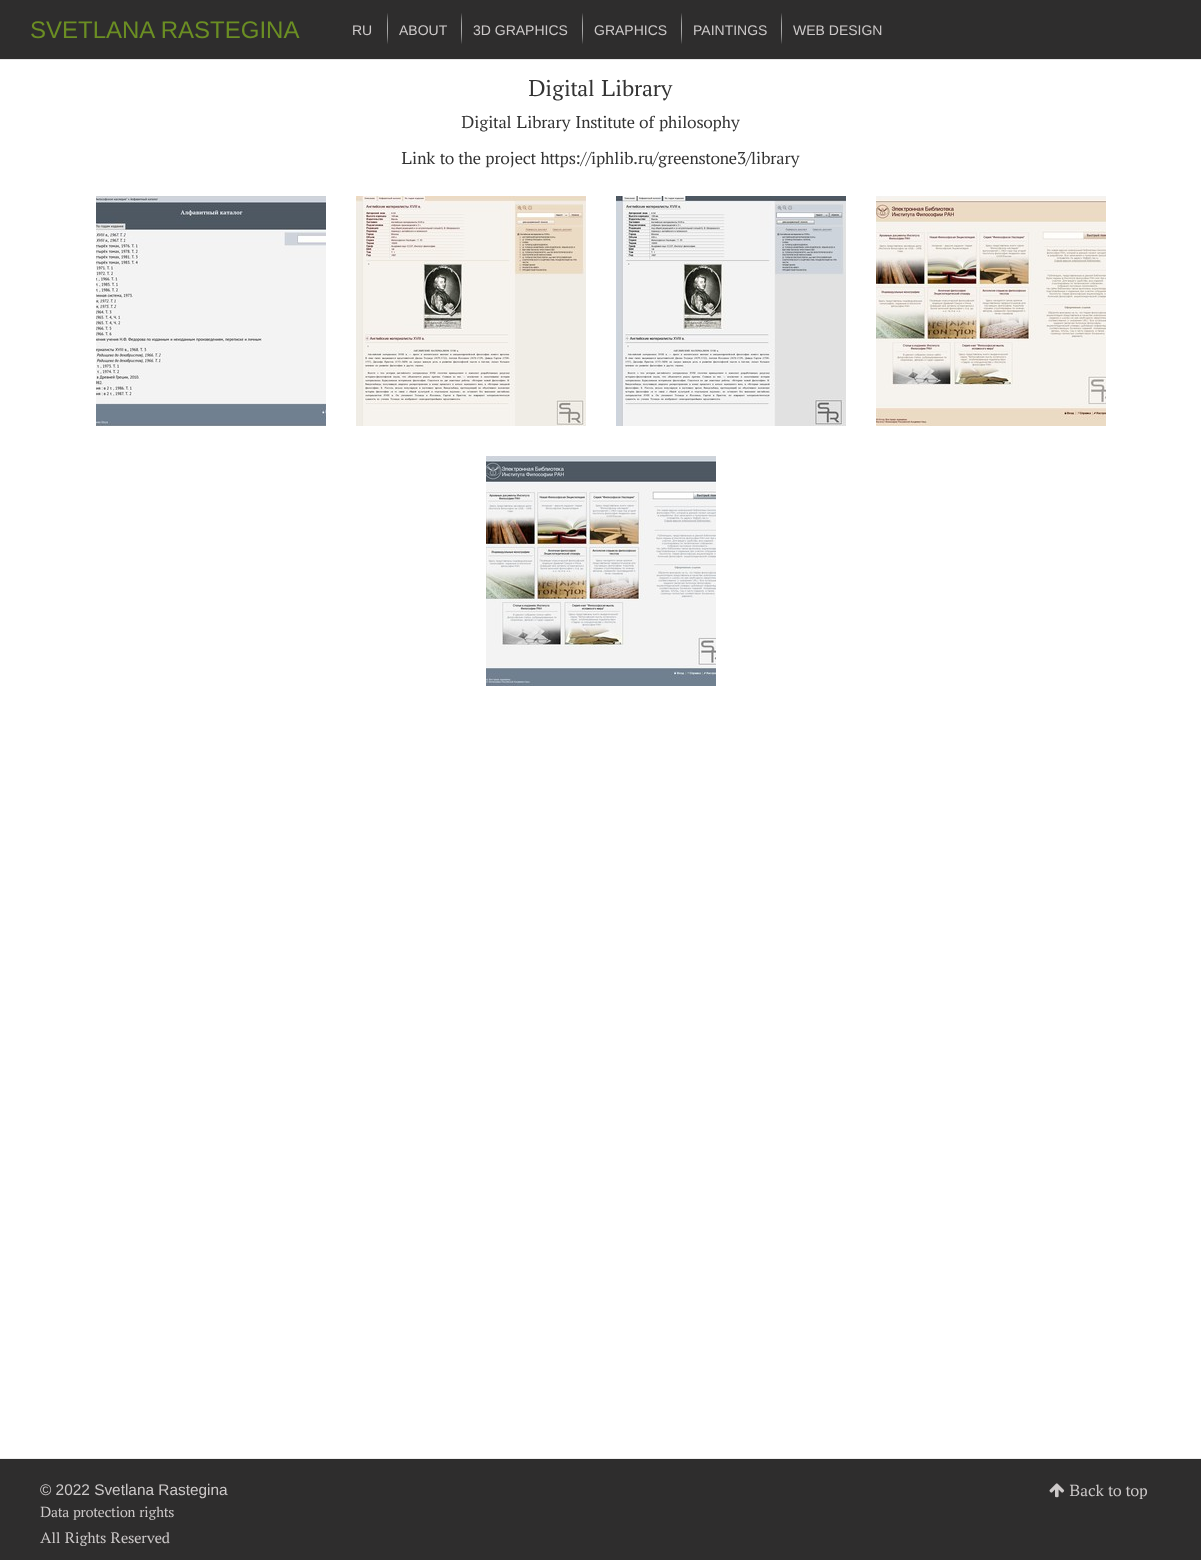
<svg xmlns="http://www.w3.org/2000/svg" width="1201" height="1560">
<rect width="100%" height="100%" fill="#fff"/>
<rect width="1201" height="59" fill="#2e2d2d"/>
<rect y="59" width="1201" height="1" fill="#e7e7e7"/>
<text x="30" y="38" style="font-family:Liberation Sans;font-size:24px;fill:#6b8e23">SVETLANA RASTEGINA</text>
<text x="352" y="35" style="font-family:Liberation Sans;font-size:14px;fill:#cdc9c9">RU</text>
<image x="387" y="13" width="1" height="31" href="media/1.png"/>
<text x="399" y="35" style="font-family:Liberation Sans;font-size:14px;fill:#cdc9c9">ABOUT</text>
<image x="461" y="13" width="1" height="31" href="media/1.png"/>
<text x="473" y="35" style="font-family:Liberation Sans;font-size:14px;fill:#cdc9c9">3D GRAPHICS</text>
<image x="582" y="13" width="1" height="31" href="media/1.png"/>
<text x="594" y="35" style="font-family:Liberation Sans;font-size:14px;fill:#cdc9c9">GRAPHICS</text>
<image x="681" y="13" width="1" height="31" href="media/1.png"/>
<text x="693" y="35" style="font-family:Liberation Sans;font-size:14px;fill:#cdc9c9">PAINTINGS</text>
<image x="781" y="13" width="1" height="31" href="media/1.png"/>
<text x="793" y="35" style="font-family:Liberation Sans;font-size:14px;fill:#cdc9c9">WEB DESIGN</text>
<text x="528" y="96" style="font-family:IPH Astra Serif;font-size:24px;fill:#333">Digital Library</text>
<text x="461" y="128" style="font-family:IPH Astra Serif;font-size:18.2px;fill:#333">Digital Library Institute of philosophy</text>
<text x="401" y="164" style="font-family:IPH Astra Serif;font-size:18.2px;fill:#333">Link to the project https://iphlib.ru/greenstone3/library</text>
<image x="96" y="196" width="230" height="230" href="media/2.png"/>
<image x="356" y="196" width="230" height="230" href="media/3.png"/>
<image x="616" y="196" width="230" height="230" href="media/4.png"/>
<image x="876" y="196" width="230" height="230" href="media/5.png"/>
<image x="486" y="456" width="230" height="230" href="media/6.png"/>
<rect y="1459" width="1201" height="101" fill="#2e2d2d"/>
<rect y="1458" width="1201" height="1" fill="#eee"/>
<text x="40" y="1495" style="font-family:Liberation Sans;font-size:15.4px;fill:#cdc9c9">© 2022 Svetlana Rastegina</text>
<text x="40" y="1517" style="font-family:IPH Astra Serif;font-size:15.4px;fill:#cdc9c9">Data protection rights</text>
<text x="40" y="1543" style="font-family:IPH Astra Serif;font-size:16px;fill:#cdc9c9">All Rights Reserved</text>
<image x="1049" y="1483" width="16" height="15" href="media/7.png"/>
<text x="1069" y="1496" style="font-family:IPH Astra Serif;font-size:17px;fill:#cdc9c9">Back to top</text>
</svg>
